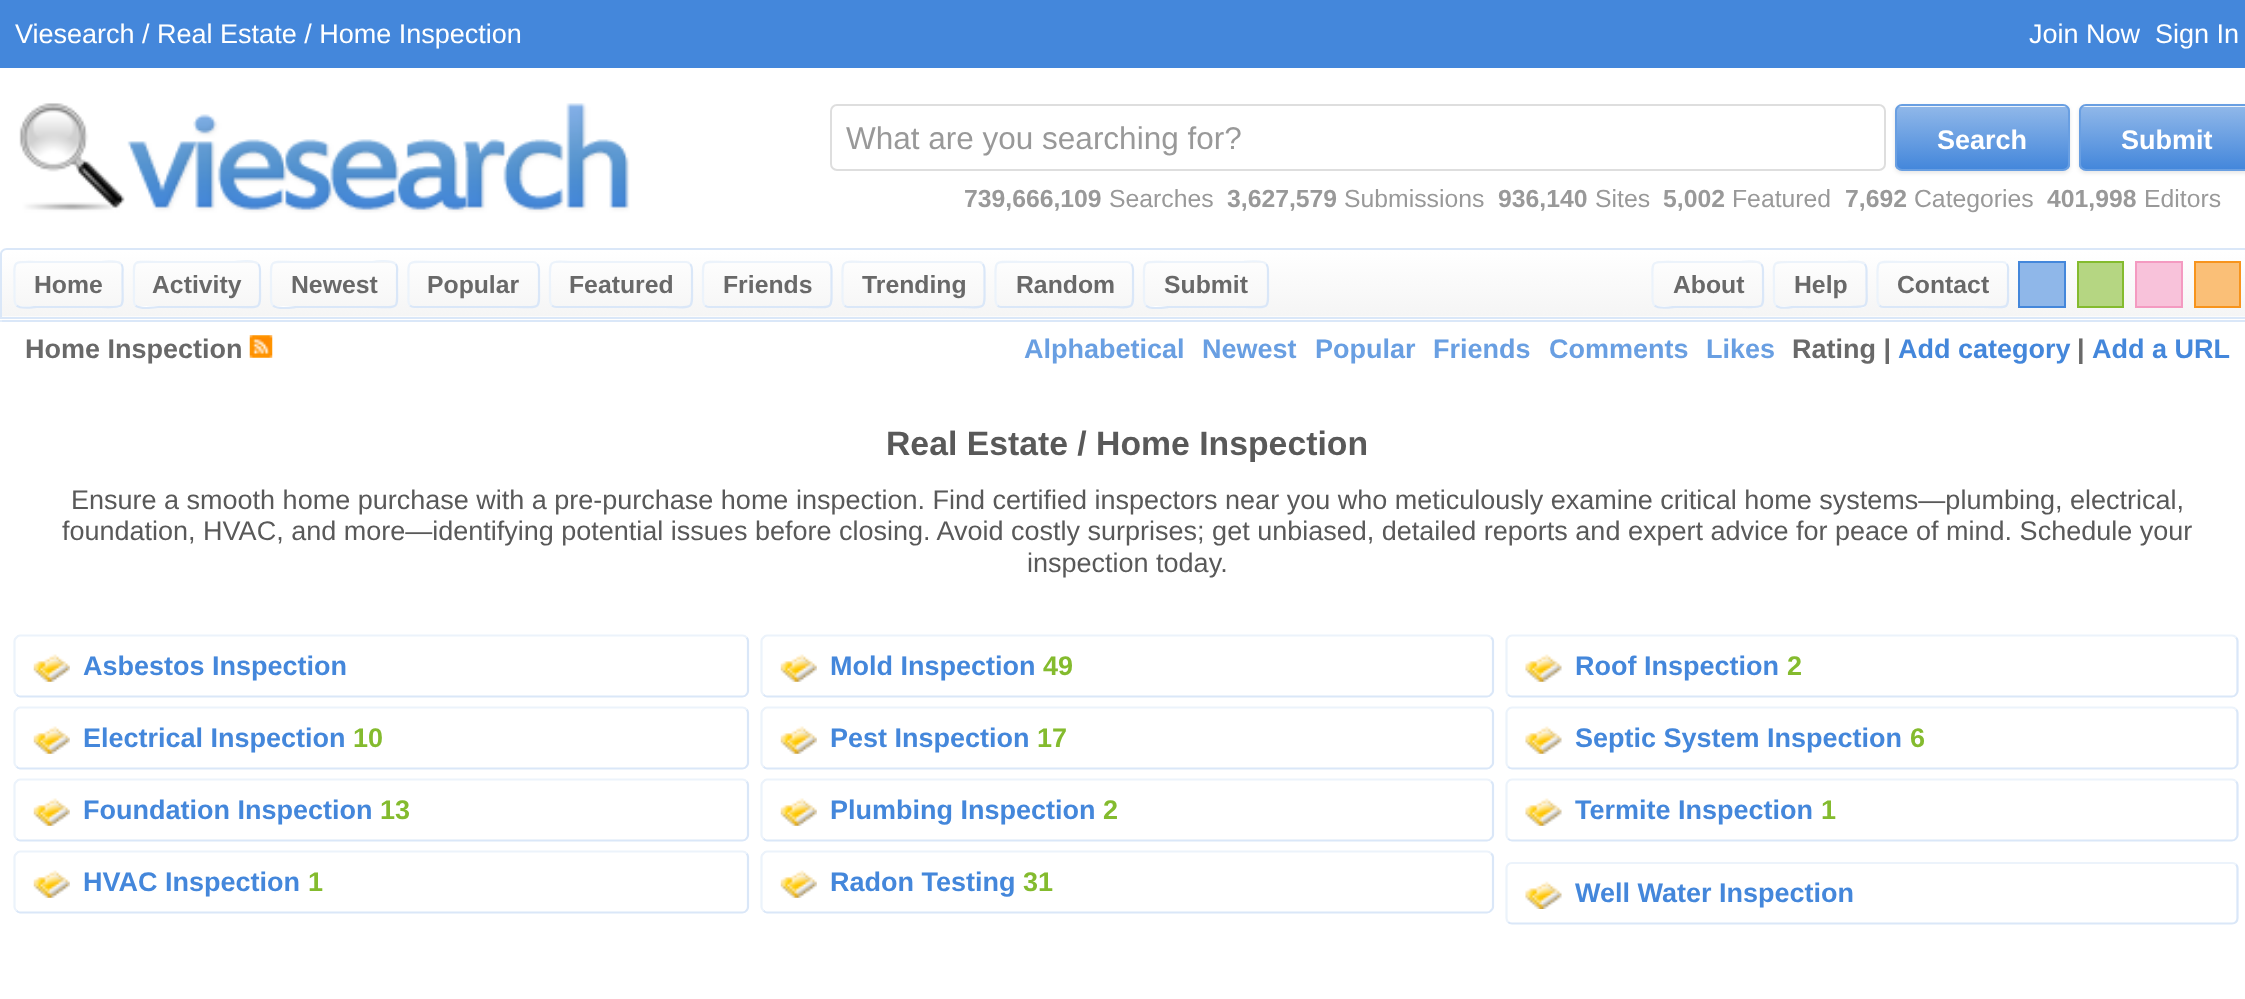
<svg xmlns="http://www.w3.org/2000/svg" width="2245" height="999">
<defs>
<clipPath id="clip1"><rect x="1895" y="104" width="175" height="67" rx="7"/></clipPath>
<linearGradient id="g1" gradientUnits="userSpaceOnUse" x1="2068" y1="106" x2="2068" y2="169"><stop offset="0.01" stop-color="#ecf3fb"/><stop offset="0.02" stop-color="#8fb7e9"/><stop offset="1" stop-color="#4487db"/></linearGradient>
<clipPath id="clip2"><rect x="2079" y="104" width="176" height="67" rx="7"/></clipPath>
<linearGradient id="g2" gradientUnits="userSpaceOnUse" x1="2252" y1="106" x2="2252" y2="169"><stop offset="0.01" stop-color="#ecf3fb"/><stop offset="0.02" stop-color="#8fb7e9"/><stop offset="1" stop-color="#4487db"/></linearGradient>
<clipPath id="clip3"><path d="M7 248h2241c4 0 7 3 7 7v62h-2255v-62c0-4 3-7 7-7z"/></clipPath>
<linearGradient id="g3" gradientUnits="userSpaceOnUse" x1="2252" y1="250" x2="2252" y2="317"><stop offset="0.01" stop-color="#fff"/><stop offset="0.02" stop-color="#fff"/><stop offset="0.98" stop-color="#f5f5f5"/><stop offset="1" stop-color="#fff"/></linearGradient>
<clipPath id="clip4"><rect x="14" y="261" width="110" height="47" rx="7"/></clipPath>
<linearGradient id="g4" gradientUnits="userSpaceOnUse" x1="122" y1="221" x2="122" y2="263"><stop offset="0.01" stop-color="#fff"/><stop offset="0.02" stop-color="#fff"/><stop offset="1" stop-color="#f5f5f5"/></linearGradient>
<linearGradient id="g5" gradientUnits="userSpaceOnUse" x1="122" y1="306" x2="122" y2="349"><stop offset="0.01" stop-color="#fff"/><stop offset="0.02" stop-color="#fff"/><stop offset="1" stop-color="#f5f5f5"/></linearGradient>
<clipPath id="clip5"><rect x="133" y="261" width="128" height="47" rx="7"/></clipPath>
<linearGradient id="g6" gradientUnits="userSpaceOnUse" x1="259" y1="221" x2="259" y2="263"><stop offset="0.01" stop-color="#fff"/><stop offset="0.02" stop-color="#fff"/><stop offset="1" stop-color="#f5f5f5"/></linearGradient>
<linearGradient id="g7" gradientUnits="userSpaceOnUse" x1="259" y1="306" x2="259" y2="349"><stop offset="0.01" stop-color="#fff"/><stop offset="0.02" stop-color="#fff"/><stop offset="1" stop-color="#f5f5f5"/></linearGradient>
<clipPath id="clip6"><rect x="270" y="261" width="128" height="47" rx="7"/></clipPath>
<linearGradient id="g8" gradientUnits="userSpaceOnUse" x1="396" y1="221" x2="396" y2="263"><stop offset="0.01" stop-color="#fff"/><stop offset="0.02" stop-color="#fff"/><stop offset="1" stop-color="#f5f5f5"/></linearGradient>
<linearGradient id="g9" gradientUnits="userSpaceOnUse" x1="396" y1="306" x2="396" y2="349"><stop offset="0.01" stop-color="#fff"/><stop offset="0.02" stop-color="#fff"/><stop offset="1" stop-color="#f5f5f5"/></linearGradient>
<clipPath id="clip7"><rect x="702" y="261" width="131" height="47" rx="7"/></clipPath>
<linearGradient id="g10" gradientUnits="userSpaceOnUse" x1="830" y1="221" x2="830" y2="263"><stop offset="0.01" stop-color="#fff"/><stop offset="0.02" stop-color="#fff"/><stop offset="1" stop-color="#f5f5f5"/></linearGradient>
<clipPath id="clip8"><rect x="842" y="261" width="144" height="47" rx="7"/></clipPath>
<linearGradient id="g11" gradientUnits="userSpaceOnUse" x1="983" y1="221" x2="983" y2="263"><stop offset="0.01" stop-color="#fff"/><stop offset="0.02" stop-color="#fff"/><stop offset="1" stop-color="#f5f5f5"/></linearGradient>
<clipPath id="clip9"><rect x="1143" y="261" width="126" height="47" rx="7"/></clipPath>
<linearGradient id="g12" gradientUnits="userSpaceOnUse" x1="1267" y1="221" x2="1267" y2="263"><stop offset="0.01" stop-color="#fff"/><stop offset="0.02" stop-color="#fff"/><stop offset="1" stop-color="#f5f5f5"/></linearGradient>
<linearGradient id="g13" gradientUnits="userSpaceOnUse" x1="1267" y1="306" x2="1267" y2="349"><stop offset="0.01" stop-color="#fff"/><stop offset="0.02" stop-color="#fff"/><stop offset="1" stop-color="#f5f5f5"/></linearGradient>
<clipPath id="clip10"><rect x="1652" y="261" width="112" height="47" rx="7"/></clipPath>
<linearGradient id="g14" gradientUnits="userSpaceOnUse" x1="1762" y1="221" x2="1762" y2="263"><stop offset="0.01" stop-color="#fff"/><stop offset="0.02" stop-color="#fff"/><stop offset="1" stop-color="#f5f5f5"/></linearGradient>
<linearGradient id="g15" gradientUnits="userSpaceOnUse" x1="1762" y1="306" x2="1762" y2="349"><stop offset="0.01" stop-color="#fff"/><stop offset="0.02" stop-color="#fff"/><stop offset="1" stop-color="#f5f5f5"/></linearGradient>
<clipPath id="clip11"><rect x="1773" y="261" width="95" height="47" rx="7"/></clipPath>
<linearGradient id="g16" gradientUnits="userSpaceOnUse" x1="1865" y1="221" x2="1865" y2="263"><stop offset="0.01" stop-color="#fff"/><stop offset="0.02" stop-color="#fff"/><stop offset="1" stop-color="#f5f5f5"/></linearGradient>
<linearGradient id="g17" gradientUnits="userSpaceOnUse" x1="1865" y1="306" x2="1865" y2="349"><stop offset="0.01" stop-color="#fff"/><stop offset="0.02" stop-color="#fff"/><stop offset="1" stop-color="#f5f5f5"/></linearGradient>
</defs>
<rect width="100%" height="100%" fill="#fff"/>
<rect width="2245" height="68" fill="#4487db"/>
<text x="15" y="43" style="font-family:Liberation Sans;font-size:27px;fill:#fff">Viesearch / Real Estate / Home Inspection</text>
<text x="2029" y="43" style="font-family:Liberation Sans;font-size:27px;fill:#fff">Join Now</text>
<text x="2155" y="43" style="font-family:Liberation Sans;font-size:27px;fill:#fff">Sign In</text>
<image x="19" y="103" width="611" height="110" href="media/1.png"/>
<rect x="831" y="105" width="1054" height="65" rx="6" fill="none" stroke="#dedede" stroke-width="2"/>
<text x="846" y="149" style="font-family:Liberation Sans;font-size:31.5px;fill:#999">What are you searching for?</text>
<rect x="1895" y="106" width="175" height="67" rx="7" fill="#0000001a" filter="blur(2px)"/>
<g clip-path="url(#clip1)">
<rect x="1895" y="106" width="175" height="63" fill="url(#g1)"/>
</g>
<rect x="1896" y="105" width="173" height="65" rx="6" fill="none" stroke="#699fe2" stroke-width="2"/>
<text x="1937" y="149" style="font-family:Liberation Sans;font-size:27px;font-weight:bold;fill:#fff">Search</text>
<rect x="2079" y="106" width="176" height="67" rx="7" fill="#0000001a" filter="blur(2px)"/>
<g clip-path="url(#clip2)">
<rect x="2079" y="106" width="166" height="63" fill="url(#g2)"/>
</g>
<rect x="2080" y="105" width="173" height="65" rx="6" fill="none" stroke="#699fe2" stroke-width="2"/>
<text x="2121" y="149" style="font-family:Liberation Sans;font-size:27px;font-weight:bold;fill:#fff">Submit</text>
<text x="964" y="207" style="font-family:Liberation Sans;font-size:24.75px;font-weight:bold;fill:#999">739,666,109</text>
<text x="1109" y="207" style="font-family:Liberation Sans;font-size:24.75px;fill:#999">Searches</text>
<text x="1227" y="207" style="font-family:Liberation Sans;font-size:24.75px;font-weight:bold;fill:#999">3,627,579</text>
<text x="1344" y="207" style="font-family:Liberation Sans;font-size:24.75px;fill:#999">Submissions</text>
<text x="1498" y="207" style="font-family:Liberation Sans;font-size:24.75px;font-weight:bold;fill:#999">936,140</text>
<text x="1595" y="207" style="font-family:Liberation Sans;font-size:24.75px;fill:#999">Sites</text>
<text x="1663" y="207" style="font-family:Liberation Sans;font-size:24.75px;font-weight:bold;fill:#999">5,002</text>
<text x="1732" y="207" style="font-family:Liberation Sans;font-size:24.75px;fill:#999">Featured</text>
<text x="1845" y="207" style="font-family:Liberation Sans;font-size:24.75px;font-weight:bold;fill:#999">7,692</text>
<text x="1914" y="207" style="font-family:Liberation Sans;font-size:24.75px;fill:#999">Categories</text>
<text x="2047" y="207" style="font-family:Liberation Sans;font-size:24.75px;font-weight:bold;fill:#999">401,998</text>
<text x="2144" y="207" style="font-family:Liberation Sans;font-size:24.75px;fill:#999">Editors</text>
<rect y="317" width="2245" height="2" fill="#dae7f8"/>
<g clip-path="url(#clip3)">
<rect y="250" width="2245" height="67" fill="url(#g3)"/>
</g>
<path d="M7 248h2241c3 0 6 3 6 6v63h-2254v-63c0-3 3-6 7-6zm0 2h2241c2 0 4 2 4 4v63h-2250v-63c0-2 2-4 5-4z" fill="#dae7f8" fill-rule="evenodd"/>
<g clip-path="url(#clip4)">
<rect x="14" y="261" width="110" height="2" fill="url(#g4)"/>
<rect x="14" y="306" width="110" height="2" fill="url(#g5)"/>
</g>
<path d="M121 264c2.5 2 1.5 6.5 1.5 9.5v11c0 25 4 22.5-21.5 22.5h-64.5c-2 0-16 2.5-20-1.5" fill="none" stroke="#dae7f8" stroke-width="2.2"/>
<path d="M16.5 305.5c-2.5-2.5-2-6.5-2-9.5v-11.5c0-25-3.5-22.5 22-22.5h64.5c2 0 16-2.5 20 2" fill="none" stroke="#ecf3fb" stroke-width="2.2"/>
<text x="34" y="293" style="font-family:Liberation Sans;font-size:24.75px;font-weight:bold;fill:#696969">Home</text>
<g clip-path="url(#clip5)">
<rect x="133" y="261" width="128" height="2" fill="url(#g6)"/>
<rect x="133" y="306" width="128" height="2" fill="url(#g7)"/>
</g>
<path d="M258 264c2.5 2 2 6.5 2 9.5v11c0 26.5 3 22.5-25 22.5h-76.5c0 0-18.5 3-23-1.5" fill="none" stroke="#dae7f8" stroke-width="2.2"/>
<path d="M135.5 305.5c-2.5-2.5-1.5-6.5-1.5-9.5v-11.5c0-26.5-3.5-22.5 24.5-22.5h76.5c.5 0 18.5-3 23 2" fill="none" stroke="#ecf3fb" stroke-width="2.2"/>
<text x="152" y="293" style="font-family:Liberation Sans;font-size:24.75px;font-weight:bold;fill:#696969">Activity</text>
<g clip-path="url(#clip6)">
<rect x="270" y="261" width="128" height="2" fill="url(#g8)"/>
<rect x="270" y="306" width="128" height="2" fill="url(#g9)"/>
</g>
<path d="M395.5 264c2.5 2 1.5 6.5 1.5 9.5v11c0 26.5 3.5 22.5-24.5 22.5h-76.5c-.5 0-18.5 3-23-1.5" fill="none" stroke="#dae7f8" stroke-width="2.2"/>
<path d="M273 305.5c-2.5-2.5-2-6.5-2-9.5v-11.5c0-26.5-3-22.5 25-22.5h76.5c0 0 18.5-3 23 2" fill="none" stroke="#ecf3fb" stroke-width="2.2"/>
<text x="291" y="293" style="font-family:Liberation Sans;font-size:24.75px;font-weight:bold;fill:#696969">Newest</text>
<path d="M537 264c2.5 2 2 6.5 2 9.5v11c0 27 3 22.5-25.5 22.5h-99.5c-1.5 0-3-.5-4-1.5" fill="none" stroke="#dae7f8" stroke-width="2.2"/>
<path d="M410 305.5c-2.5-2.5-1.5-6.5-1.5-9.5v-11.5c0-26.5-3.5-22.5 25.5-22.5h99c1.5 0 3 .5 4 2" fill="none" stroke="#ecf3fb" stroke-width="2.2"/>
<text x="427" y="293" style="font-family:Liberation Sans;font-size:24.75px;font-weight:bold;fill:#696969">Popular</text>
<path d="M690 264c2.5 2 2 6.5 2 9.5v11c0 27.5 3 22.5-27.5 22.5h-108.5c-1.5 0-3-.5-4-1.5" fill="none" stroke="#dae7f8" stroke-width="2.2"/>
<path d="M552 305.5c-2.5-2.5-2-6.5-2-9.5v-11.5c0-27.5-3-22.5 27.5-22.5h108.5c1.5 0 3 .5 4 2" fill="none" stroke="#ecf3fb" stroke-width="2.2"/>
<text x="569" y="293" style="font-family:Liberation Sans;font-size:24.75px;font-weight:bold;fill:#696969">Featured</text>
<g clip-path="url(#clip7)">
<rect x="702" y="261" width="131" height="2" fill="url(#g10)"/>
</g>
<path d="M829.5 264c2.5 2 2 6.5 2 9.5v11c0 26.5 3 22.5-25.5 22.5h-97c-1.5 0-3-.5-4-1.5" fill="none" stroke="#dae7f8" stroke-width="2.2"/>
<path d="M705 305.5c-2.5-2.5-2-6.5-2-9.5v-11.5c0-26.5-3-22.5 25-22.5h98c1 0 2.5 .5 3.5 2" fill="none" stroke="#ecf3fb" stroke-width="2.2"/>
<text x="723" y="293" style="font-family:Liberation Sans;font-size:24.75px;font-weight:bold;fill:#696969">Friends</text>
<g clip-path="url(#clip8)">
<rect x="842" y="261" width="144" height="2" fill="url(#g11)"/>
</g>
<path d="M982.5 264c2.5 2 2 6.5 2 9.5v11c0 27.5 3 22.5-27.5 22.5h-109c-1 0-2.5-.5-3.5-1.5" fill="none" stroke="#dae7f8" stroke-width="2.2"/>
<path d="M844.5 305.5c-2.5-2.5-2-6.5-2-9.5v-11.5c0-27.5-3-22.5 27.5-22.5h109c1 0 2.5 .5 3.5 2" fill="none" stroke="#ecf3fb" stroke-width="2.2"/>
<text x="862" y="293" style="font-family:Liberation Sans;font-size:24.75px;font-weight:bold;fill:#696969">Trending</text>
<path d="M1131 264c2.5 2 2 6.5 2 9.5v11c0 27.5 3 22.5-27 22.5h-105c-1 0-2.5-.5-3.5-1.5" fill="none" stroke="#dae7f8" stroke-width="2.2"/>
<path d="M997.5 305.5c-2.5-2.5-2-6.5-2-9.5v-11.5c0-27-3-22.5 26.5-22.5h105c1.5 0 3 .5 4 2" fill="none" stroke="#ecf3fb" stroke-width="2.2"/>
<text x="1016" y="293" style="font-family:Liberation Sans;font-size:24.75px;font-weight:bold;fill:#696969">Random</text>
<g clip-path="url(#clip9)">
<rect x="1143" y="261" width="126" height="2" fill="url(#g12)"/>
<rect x="1143" y="306" width="126" height="2" fill="url(#g13)"/>
</g>
<path d="M1266 264c2.5 2 2 6.5 2 9.5v11c0 26.5 3 22.5-24.5 22.5h-75c-.5 0-18.5 3-22.5-1.5" fill="none" stroke="#dae7f8" stroke-width="2.2"/>
<path d="M1146 305.5c-2.5-2.5-2-6.5-2-9.5v-11.5c0-26-3-22.5 24.5-22.5h75c.5 0 18.5-2.5 22.5 2" fill="none" stroke="#ecf3fb" stroke-width="2.2"/>
<text x="1164" y="293" style="font-family:Liberation Sans;font-size:24.75px;font-weight:bold;fill:#696969">Submit</text>
<g clip-path="url(#clip10)">
<rect x="1652" y="261" width="112" height="2" fill="url(#g14)"/>
<rect x="1652" y="306" width="112" height="2" fill="url(#g15)"/>
</g>
<path d="M1761 264c2.5 2 2 6.5 2 9.5v11c0 25.5 3.5 22.5-22 22.5h-66c-2 0-16.5 2.5-20.5-1.5" fill="none" stroke="#dae7f8" stroke-width="2.2"/>
<path d="M1654.5 305.5c-2.5-2.5-2-6.5-2-9.5v-11.5c0-25-3.5-22.5 22.5-22.5h66c1.5 0 16-2.5 20 2" fill="none" stroke="#ecf3fb" stroke-width="2.2"/>
<text x="1673" y="293" style="font-family:Liberation Sans;font-size:24.75px;font-weight:bold;fill:#696969">About</text>
<g clip-path="url(#clip11)">
<rect x="1773" y="261" width="95" height="2" fill="url(#g16)"/>
<rect x="1773" y="306" width="95" height="2" fill="url(#g17)"/>
</g>
<path d="M1864.5 264c2.5 2 2 6.5 2 9.5v11c0 23.5 4 22.5-19.5 22.5h-54c-1 0-13.5 2.5-17-1.5" fill="none" stroke="#dae7f8" stroke-width="2.2"/>
<path d="M1776 305.5c-2.5-2.5-2-6.5-2-9.5v-11.5c0-23.5-4-22.5 19-22.5h54c1.5 0 14-2 17.5 2" fill="none" stroke="#ecf3fb" stroke-width="2.2"/>
<text x="1794" y="293" style="font-family:Liberation Sans;font-size:24.75px;font-weight:bold;fill:#696969">Help</text>
<path d="M2006.5 264c2.5 2 1.5 6.5 1.5 9.5v11c0 27 3.5 22.5-25.5 22.5h-99.5c-1 0-2.5-.5-3.5-1.5" fill="none" stroke="#dae7f8" stroke-width="2.2"/>
<path d="M1879.5 305.5c-2.5-2.5-2-6.5-2-9.5v-11.5c0-26.5-3-22.5 25.5-22.5h99.5c1.5 0 3 .5 4 2" fill="none" stroke="#ecf3fb" stroke-width="2.2"/>
<text x="1897" y="293" style="font-family:Liberation Sans;font-size:24.75px;font-weight:bold;fill:#696969">Contact</text>
<rect x="2019" y="262" width="46" height="45" fill="#8fb7e9" stroke="#4487db" stroke-width="2"/>
<rect x="2078" y="262" width="45" height="45" fill="#b5d682" stroke="#84bb2e" stroke-width="2"/>
<rect x="2136" y="262" width="46" height="45" fill="#f8c2da" stroke="#f49ac1" stroke-width="2"/>
<rect x="2195" y="262" width="45" height="45" fill="#fabf77" stroke="#f7941d" stroke-width="2"/>
<rect x="2" y="320" width="2243" height="2" fill="#dae7f8"/>
<circle cx="1" cy="321" r="1" fill="#dae7f8"/>
<text x="25" y="358" style="font-family:Liberation Sans;font-size:27px;font-weight:bold;fill:#696969">Home Inspection</text>
<image x="249" y="335" width="24" height="23" href="media/2.png"/>
<text x="1024" y="358" style="font-family:Liberation Sans;font-size:27px;font-weight:bold;fill:#699fe2">Alphabetical</text>
<text x="1202" y="358" style="font-family:Liberation Sans;font-size:27px;font-weight:bold;fill:#699fe2">Newest</text>
<text x="1315" y="358" style="font-family:Liberation Sans;font-size:27px;font-weight:bold;fill:#699fe2">Popular</text>
<text x="1433" y="358" style="font-family:Liberation Sans;font-size:27px;font-weight:bold;fill:#699fe2">Friends</text>
<text x="1549" y="358" style="font-family:Liberation Sans;font-size:27px;font-weight:bold;fill:#699fe2">Comments</text>
<text x="1706" y="358" style="font-family:Liberation Sans;font-size:27px;font-weight:bold;fill:#699fe2">Likes</text>
<text x="1792" y="358" style="font-family:Liberation Sans;font-size:27px;font-weight:bold;fill:#696969">Rating |</text>
<text x="1898" y="358" style="font-family:Liberation Sans;font-size:27px;font-weight:bold;fill:#4487db">Add category</text>
<text x="2077" y="358" style="font-family:Liberation Sans;font-size:27px;font-weight:bold;fill:#696969">|</text>
<text x="2092" y="358" style="font-family:Liberation Sans;font-size:27px;font-weight:bold;fill:#4487db">Add a URL</text>
<text x="886" y="455" style="font-family:Liberation Sans;font-size:33.75px;font-weight:bold;fill:#595959">Real Estate / Home Inspection</text>
<text x="71" y="509" style="font-family:Liberation Sans;font-size:27px;fill:#595959">Ensure a smooth home purchase with a pre-purchase home inspection. Find certified inspectors near you who meticulously examine critical home systems—plumbing, electrical,</text>
<text x="62" y="540" style="font-family:Liberation Sans;font-size:27px;fill:#595959">foundation, HVAC, and more—identifying potential issues before closing. Avoid costly surprises; get unbiased, detailed reports and expert advice for peace of mind. Schedule your</text>
<text x="1027" y="572" style="font-family:Liberation Sans;font-size:27px;fill:#595959">inspection today.</text>
<path d="M746.5 637.5c1 1 1.5 2.5 1.5 3.5v50c0 1-.5 2.5-1.5 3.5c-1 1.5-2.5 2-4 2h-722.5c-1 0-2.5-.5-3.5-2" fill="none" stroke="#dae7f8" stroke-width="2.2"/>
<path d="M16.5 694.5c-1.5-1-2-2.5-2-3.5v-50c0-1 .5-2.5 2-3.5c1-1.5 2.5-2 3.5-2h722.5c1.5 0 3 .5 4 2" fill="none" stroke="#ecf3fb" stroke-width="2.2"/>
<image x="33" y="654" width="37" height="28" href="media/3.png"/>
<text x="83" y="675" style="font-family:Liberation Sans;font-size:27px;font-weight:bold;fill:#4487db">Asbestos Inspection</text>
<path d="M746.5 709.5c1 1 1.5 2.5 1.5 3.5v50c0 1-.5 2.5-1.5 3.5c-1 1.5-2.5 2-4 2h-722.5c-1 0-2.5-.5-3.5-2" fill="none" stroke="#dae7f8" stroke-width="2.2"/>
<path d="M16.5 766.5c-1.5-1-2-2.5-2-3.5v-50c0-1 .5-2.5 2-3.5c1-1.5 2.5-2 3.5-2h722.5c1.5 0 3 .5 4 2" fill="none" stroke="#ecf3fb" stroke-width="2.2"/>
<image x="33" y="726" width="37" height="28" href="media/3.png"/>
<text x="83" y="747" style="font-family:Liberation Sans;font-size:27px;font-weight:bold;fill:#4487db">Electrical Inspection</text>
<text x="353" y="747" style="font-family:Liberation Sans;font-size:27px;font-weight:bold;fill:#84bb2e">10</text>
<path d="M746.5 781.5c1 1 1.5 2.5 1.5 3.5v50c0 1-.5 2.5-1.5 3.5c-1 1.5-2.5 2-4 2h-722.5c-1 0-2.5-.5-3.5-2" fill="none" stroke="#dae7f8" stroke-width="2.2"/>
<path d="M16.5 838.5c-1.5-1-2-2.5-2-3.5v-50c0-1 .5-2.5 2-3.5c1-1.5 2.5-2 3.5-2h722.5c1.5 0 3 .5 4 2" fill="none" stroke="#ecf3fb" stroke-width="2.2"/>
<image x="33" y="798" width="37" height="28" href="media/3.png"/>
<text x="83" y="819" style="font-family:Liberation Sans;font-size:27px;font-weight:bold;fill:#4487db">Foundation Inspection</text>
<text x="380" y="819" style="font-family:Liberation Sans;font-size:27px;font-weight:bold;fill:#84bb2e">13</text>
<path d="M746.5 853.5c1 1 1.5 2.5 1.5 3.5v50c0 1-.5 2.5-1.5 3.5c-1 1.5-2.5 2-4 2h-722.5c-1 0-2.5-.5-3.5-2" fill="none" stroke="#dae7f8" stroke-width="2.2"/>
<path d="M16.5 910.5c-1.5-1-2-2.5-2-3.5v-50c0-1 .5-2.5 2-3.5c1-1.5 2.5-2 3.5-2h722.5c1.5 0 3 .5 4 2" fill="none" stroke="#ecf3fb" stroke-width="2.2"/>
<image x="33" y="870" width="37" height="28" href="media/3.png"/>
<text x="83" y="891" style="font-family:Liberation Sans;font-size:27px;font-weight:bold;fill:#4487db">HVAC Inspection</text>
<text x="308" y="891" style="font-family:Liberation Sans;font-size:27px;font-weight:bold;fill:#84bb2e">1</text>
<path d="M1491 637.5c1.5 1 2 2.5 2 3.5v50c0 1-.5 2.5-2 3.5c-1 1.5-2.5 2-4 2h-720c-1 0-2.5-.5-3.5-2" fill="none" stroke="#dae7f8" stroke-width="2.2"/>
<path d="M763.5 694.5c-1.5-1-2-2.5-2-3.5v-50c0-1 .5-2.5 2-3.5c1-1.5 2.5-2 3.5-2h720c1.5 0 3 .5 4 2" fill="none" stroke="#ecf3fb" stroke-width="2.2"/>
<image x="780" y="654" width="37" height="28" href="media/4.png"/>
<text x="830" y="675" style="font-family:Liberation Sans;font-size:27px;font-weight:bold;fill:#4487db">Mold Inspection</text>
<text x="1043" y="675" style="font-family:Liberation Sans;font-size:27px;font-weight:bold;fill:#84bb2e">49</text>
<path d="M1491 709.5c1.5 1 2 2.5 2 3.5v50c0 1-.5 2.5-2 3.5c-1 1.5-2.5 2-4 2h-720c-1 0-2.5-.5-3.5-2" fill="none" stroke="#dae7f8" stroke-width="2.2"/>
<path d="M763.5 766.5c-1.5-1-2-2.5-2-3.5v-50c0-1 .5-2.5 2-3.5c1-1.5 2.5-2 3.5-2h720c1.5 0 3 .5 4 2" fill="none" stroke="#ecf3fb" stroke-width="2.2"/>
<image x="780" y="726" width="37" height="28" href="media/4.png"/>
<text x="830" y="747" style="font-family:Liberation Sans;font-size:27px;font-weight:bold;fill:#4487db">Pest Inspection</text>
<text x="1037" y="747" style="font-family:Liberation Sans;font-size:27px;font-weight:bold;fill:#84bb2e">17</text>
<path d="M1491 781.5c1.5 1 2 2.5 2 3.5v50c0 1-.5 2.5-2 3.5c-1 1.5-2.5 2-4 2h-720c-1 0-2.5-.5-3.5-2" fill="none" stroke="#dae7f8" stroke-width="2.2"/>
<path d="M763.5 838.5c-1.5-1-2-2.5-2-3.5v-50c0-1 .5-2.5 2-3.5c1-1.5 2.5-2 3.5-2h720c1.5 0 3 .5 4 2" fill="none" stroke="#ecf3fb" stroke-width="2.2"/>
<image x="780" y="798" width="37" height="28" href="media/4.png"/>
<text x="830" y="819" style="font-family:Liberation Sans;font-size:27px;font-weight:bold;fill:#4487db">Plumbing Inspection</text>
<text x="1103" y="819" style="font-family:Liberation Sans;font-size:27px;font-weight:bold;fill:#84bb2e">2</text>
<path d="M1491 853.5c1.5 1 2 2.5 2 3.5v50c0 1-.5 2.5-2 3.5c-1 1.5-2.5 2-4 2h-720c-1 0-2.5-.5-3.5-2" fill="none" stroke="#dae7f8" stroke-width="2.2"/>
<path d="M763.5 910.5c-1.5-1-2-2.5-2-3.5v-50c0-1 .5-2.5 2-3.5c1-1.5 2.5-2 3.5-2h720c1.5 0 3 .5 4 2" fill="none" stroke="#ecf3fb" stroke-width="2.2"/>
<image x="780" y="870" width="37" height="28" href="media/4.png"/>
<text x="830" y="891" style="font-family:Liberation Sans;font-size:27px;font-weight:bold;fill:#4487db">Radon Testing</text>
<text x="1023" y="891" style="font-family:Liberation Sans;font-size:27px;font-weight:bold;fill:#84bb2e">31</text>
<path d="M2236 637.5c1 1 1.5 2.5 1.5 3.5v50c0 1-.5 2.5-1.5 3.5c-1 1.5-2.5 2-4 2h-720c-1.5 0-3-.5-4-2" fill="none" stroke="#dae7f8" stroke-width="2.2"/>
<path d="M1508 694.5c-1-1-1.5-2.5-1.5-3.5v-50c0-1 .5-2.5 1.5-3.5c1-1.5 2.5-2 4-2h720c1.5 0 3 .5 4 2" fill="none" stroke="#ecf3fb" stroke-width="2.2"/>
<image x="1525" y="654" width="37" height="28" href="media/5.png"/>
<text x="1575" y="675" style="font-family:Liberation Sans;font-size:27px;font-weight:bold;fill:#4487db">Roof Inspection</text>
<text x="1787" y="675" style="font-family:Liberation Sans;font-size:27px;font-weight:bold;fill:#84bb2e">2</text>
<path d="M2236 709.5c1 1 1.5 2.5 1.5 3.5v50c0 1-.5 2.5-1.5 3.5c-1 1.5-2.5 2-4 2h-720c-1.5 0-3-.5-4-2" fill="none" stroke="#dae7f8" stroke-width="2.2"/>
<path d="M1508 766.5c-1-1-1.5-2.5-1.5-3.5v-50c0-1 .5-2.5 1.5-3.5c1-1.5 2.5-2 4-2h720c1.5 0 3 .5 4 2" fill="none" stroke="#ecf3fb" stroke-width="2.2"/>
<image x="1525" y="726" width="37" height="28" href="media/5.png"/>
<text x="1575" y="747" style="font-family:Liberation Sans;font-size:27px;font-weight:bold;fill:#4487db">Septic System Inspection</text>
<text x="1910" y="747" style="font-family:Liberation Sans;font-size:27px;font-weight:bold;fill:#84bb2e">6</text>
<path d="M2236 781.5c1 1 1.5 2.5 1.5 3.5v50c0 1-.5 2.5-1.5 3.5c-1 1.5-2.5 2-4 2h-720c-1.5 0-3-.5-4-2" fill="none" stroke="#dae7f8" stroke-width="2.2"/>
<path d="M1508 838.5c-1-1-1.5-2.5-1.5-3.5v-50c0-1 .5-2.5 1.5-3.5c1-1.5 2.5-2 4-2h720c1.5 0 3 .5 4 2" fill="none" stroke="#ecf3fb" stroke-width="2.2"/>
<image x="1525" y="798" width="37" height="28" href="media/5.png"/>
<text x="1575" y="819" style="font-family:Liberation Sans;font-size:27px;font-weight:bold;fill:#4487db">Termite Inspection</text>
<text x="1821" y="819" style="font-family:Liberation Sans;font-size:27px;font-weight:bold;fill:#84bb2e">1</text>
<path d="M2236 864.5c1 1 1.5 2.5 1.5 4v49.5c0 1.5-.5 3-1.5 4c-1 1-2.5 1.5-4 1.5h-720c-1.5 0-3-.5-4-1.5" fill="none" stroke="#dae7f8" stroke-width="2.2"/>
<path d="M1508 922c-1-1-1.5-2.5-1.5-4v-49.5c0-1.5 .5-3 1.5-4c1-1 2.5-1.5 4-1.5h720c1.5 0 3 .5 4 1.5" fill="none" stroke="#ecf3fb" stroke-width="2.2"/>
<image x="1525" y="881" width="37" height="28" href="media/6.png"/>
<text x="1575" y="902" style="font-family:Liberation Sans;font-size:27px;font-weight:bold;fill:#4487db">Well Water Inspection</text>
</svg>
